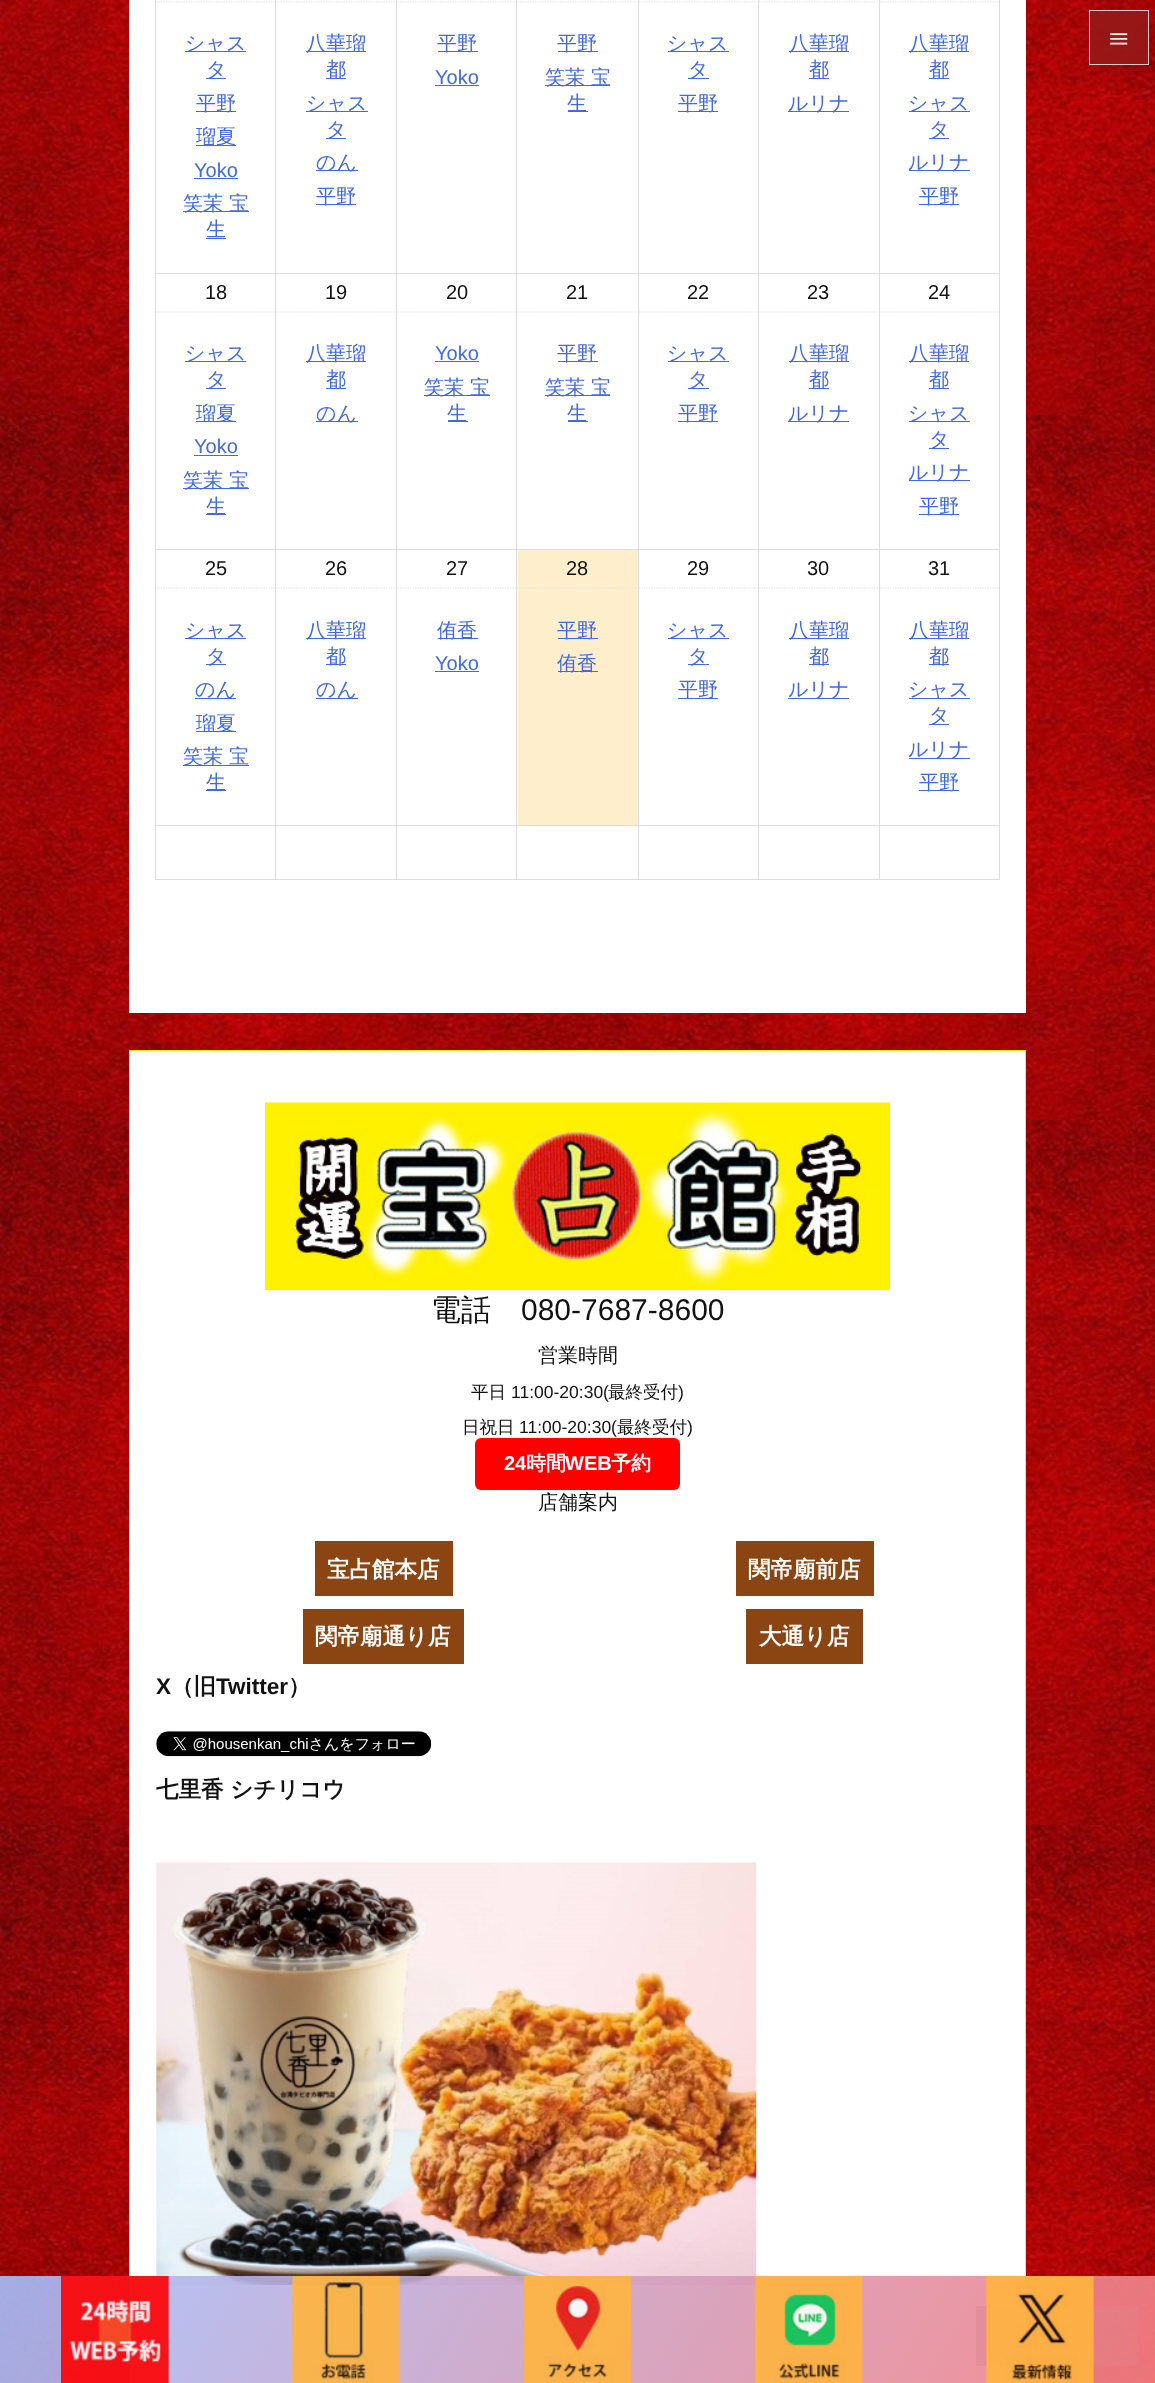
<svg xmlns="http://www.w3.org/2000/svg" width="1155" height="2383">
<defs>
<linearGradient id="g1" gradientUnits="userSpaceOnUse" x1="121" y1="2066" x2="1034" y2="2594"><stop offset="0" stop-color="#a6c0fe" stop-opacity="0.9"/><stop offset="1" stop-color="#f68084" stop-opacity="0.9"/></linearGradient>
</defs>
<rect width="100%" height="100%" fill="#fff"/>
<image x="0" y="0" width="1155" height="2383" href="media/1.png"/>
<rect x="129" width="897" height="1013" fill="#fff"/>
<path d="M156 2h119" fill="none" stroke="#ddd" stroke-width="1.2" stroke-dasharray="1.25 1.25"/>
<rect x="185" y="51" width="61" height="1" fill="#4169e1"/>
<text x="185" y="50" style="font-family:WenQuanYi Zen Hei;font-size:20px;font-weight:500;fill:#4169e1">シャス</text>
<rect x="206" y="78" width="20" height="1" fill="#4169e1"/>
<text x="206" y="76" style="font-family:WenQuanYi Zen Hei;font-size:20px;font-weight:500;fill:#4169e1">タ</text>
<rect x="196" y="111" width="40" height="1" fill="#4169e1"/>
<text x="196" y="110" style="font-family:WenQuanYi Zen Hei;font-size:20px;font-weight:500;fill:#4169e1">平野</text>
<rect x="196" y="145" width="40" height="1" fill="#4169e1"/>
<text x="196" y="143" style="font-family:WenQuanYi Zen Hei;font-size:20px;font-weight:500;fill:#4169e1">瑠夏</text>
<text x="194" y="177" style="font-family:Liberation Sans;font-size:20px;fill:#4169e1">Yoko</text>
<rect x="194" y="178" width="44" height="1" fill="#4169e1"/>
<rect x="183" y="211" width="66" height="1" fill="#4169e1"/>
<text x="183" y="210" style="font-family:WenQuanYi Zen Hei;font-size:20px;font-weight:500;fill:#4169e1">笑茉 宝</text>
<text x="206" y="236" style="font-family:WenQuanYi Zen Hei;font-size:20px;font-weight:500;fill:#4169e1">生</text>
<rect x="206" y="238" width="20" height="1" fill="#4169e1"/>
<rect x="879" y="273" width="121" height="1" fill="#ddd"/>
<rect x="879" y="549" width="121" height="1" fill="#ddd"/>
<rect x="879" y="825" width="121" height="1" fill="#ddd"/>
<rect x="999" y="825" width="1" height="55" fill="#ddd"/>
<rect x="879" y="879" width="121" height="1" fill="#ddd"/>
<rect x="879" y="825" width="1" height="55" fill="#ddd"/>
<rect x="758" y="825" width="122" height="1" fill="#ddd"/>
<rect x="879" y="549" width="1" height="277" fill="#ddd"/>
<rect x="758" y="549" width="122" height="1" fill="#ddd"/>
<rect x="879" y="273" width="1" height="277" fill="#ddd"/>
<rect x="758" y="273" width="122" height="1" fill="#ddd"/>
<rect x="758" y="879" width="122" height="1" fill="#ddd"/>
<rect x="758" y="825" width="1" height="55" fill="#ddd"/>
<rect x="638" y="825" width="121" height="1" fill="#ddd"/>
<rect x="758" y="549" width="1" height="277" fill="#ddd"/>
<rect x="638" y="549" width="121" height="1" fill="#ddd"/>
<rect x="758" y="273" width="1" height="277" fill="#ddd"/>
<rect x="638" y="273" width="121" height="1" fill="#ddd"/>
<rect x="638" y="879" width="121" height="1" fill="#ddd"/>
<rect x="638" y="825" width="1" height="55" fill="#ddd"/>
<rect x="516" y="825" width="123" height="1" fill="#ddd"/>
<rect x="638" y="549" width="1" height="277" fill="#ddd"/>
<rect x="516" y="549" width="123" height="1" fill="#ddd"/>
<rect x="638" y="273" width="1" height="277" fill="#ddd"/>
<rect x="516" y="273" width="123" height="1" fill="#ddd"/>
<rect x="516" y="879" width="123" height="1" fill="#ddd"/>
<rect x="516" y="825" width="1" height="55" fill="#ddd"/>
<rect x="396" y="825" width="122" height="1" fill="#ddd"/>
<rect x="516" y="549" width="1" height="277" fill="#ddd"/>
<rect x="396" y="549" width="122" height="1" fill="#ddd"/>
<rect x="516" y="273" width="1" height="277" fill="#ddd"/>
<rect x="396" y="273" width="122" height="1" fill="#ddd"/>
<rect x="396" y="879" width="122" height="1" fill="#ddd"/>
<rect x="396" y="825" width="1" height="55" fill="#ddd"/>
<rect x="275" y="825" width="123" height="1" fill="#ddd"/>
<rect x="396" y="549" width="1" height="277" fill="#ddd"/>
<rect x="275" y="549" width="123" height="1" fill="#ddd"/>
<rect x="396" y="273" width="1" height="277" fill="#ddd"/>
<rect x="275" y="273" width="123" height="1" fill="#ddd"/>
<rect x="275" y="879" width="123" height="1" fill="#ddd"/>
<rect x="275" y="825" width="1" height="55" fill="#ddd"/>
<rect x="155" y="825" width="121" height="1" fill="#ddd"/>
<rect x="275" y="549" width="1" height="277" fill="#ddd"/>
<rect x="155" y="549" width="121" height="1" fill="#ddd"/>
<rect x="275" y="273" width="1" height="277" fill="#ddd"/>
<rect x="155" y="273" width="121" height="1" fill="#ddd"/>
<rect x="275" width="1" height="274" fill="#ddd"/>
<path d="M276 2h120" fill="none" stroke="#ddd" stroke-width="1.2" stroke-dasharray="1.25 1.25"/>
<rect x="306" y="51" width="60" height="1" fill="#4169e1"/>
<text x="306" y="50" style="font-family:WenQuanYi Zen Hei;font-size:20px;font-weight:500;fill:#4169e1">八華瑠</text>
<rect x="326" y="78" width="20" height="1" fill="#4169e1"/>
<text x="326" y="76" style="font-family:WenQuanYi Zen Hei;font-size:20px;font-weight:500;fill:#4169e1">都</text>
<rect x="306" y="111" width="62" height="1" fill="#4169e1"/>
<text x="306" y="110" style="font-family:WenQuanYi Zen Hei;font-size:20px;font-weight:500;fill:#4169e1">シャス</text>
<rect x="326" y="138" width="20" height="1" fill="#4169e1"/>
<text x="326" y="136" style="font-family:WenQuanYi Zen Hei;font-size:20px;font-weight:500;fill:#4169e1">タ</text>
<rect x="316" y="170" width="42" height="1" fill="#4169e1"/>
<text x="316" y="169" style="font-family:WenQuanYi Zen Hei;font-size:20px;font-weight:500;fill:#4169e1">のん</text>
<rect x="316" y="204" width="40" height="1" fill="#4169e1"/>
<text x="316" y="203" style="font-family:WenQuanYi Zen Hei;font-size:20px;font-weight:500;fill:#4169e1">平野</text>
<rect x="396" width="1" height="274" fill="#ddd"/>
<path d="M397.5 2h118.5" fill="none" stroke="#ddd" stroke-width="1.2" stroke-dasharray="1.25 1.25"/>
<rect x="438" y="51" width="40" height="1" fill="#4169e1"/>
<text x="437" y="50" style="font-family:WenQuanYi Zen Hei;font-size:20px;font-weight:500;fill:#4169e1">平野</text>
<text x="435" y="84" style="font-family:Liberation Sans;font-size:20px;fill:#4169e1">Yoko</text>
<rect x="435" y="85" width="44" height="1" fill="#4169e1"/>
<rect x="516" width="1" height="274" fill="#ddd"/>
<path d="M517.5 2h120" fill="none" stroke="#ddd" stroke-width="1.2" stroke-dasharray="1.25 1.25"/>
<rect x="558" y="51" width="40" height="1" fill="#4169e1"/>
<text x="557" y="50" style="font-family:WenQuanYi Zen Hei;font-size:20px;font-weight:500;fill:#4169e1">平野</text>
<rect x="545" y="85" width="65" height="1" fill="#4169e1"/>
<text x="545" y="84" style="font-family:WenQuanYi Zen Hei;font-size:20px;font-weight:500;fill:#4169e1">笑茉 宝</text>
<rect x="568" y="111" width="20" height="1" fill="#4169e1"/>
<text x="567" y="110" style="font-family:WenQuanYi Zen Hei;font-size:20px;font-weight:500;fill:#4169e1">生</text>
<rect x="638" width="1" height="274" fill="#ddd"/>
<path d="M639 2h118.5" fill="none" stroke="#ddd" stroke-width="1.2" stroke-dasharray="1.25 1.25"/>
<rect x="668" y="51" width="61" height="1" fill="#4169e1"/>
<text x="667" y="50" style="font-family:WenQuanYi Zen Hei;font-size:20px;font-weight:500;fill:#4169e1">シャス</text>
<rect x="688" y="78" width="21" height="1" fill="#4169e1"/>
<text x="688" y="76" style="font-family:WenQuanYi Zen Hei;font-size:20px;font-weight:500;fill:#4169e1">タ</text>
<rect x="678" y="111" width="40" height="1" fill="#4169e1"/>
<text x="678" y="110" style="font-family:WenQuanYi Zen Hei;font-size:20px;font-weight:500;fill:#4169e1">平野</text>
<rect x="758" width="1" height="274" fill="#ddd"/>
<path d="M759 2h120" fill="none" stroke="#ddd" stroke-width="1.2" stroke-dasharray="1.25 1.25"/>
<rect x="789" y="51" width="60" height="1" fill="#4169e1"/>
<text x="789" y="50" style="font-family:WenQuanYi Zen Hei;font-size:20px;font-weight:500;fill:#4169e1">八華瑠</text>
<rect x="809" y="78" width="20" height="1" fill="#4169e1"/>
<text x="809" y="76" style="font-family:WenQuanYi Zen Hei;font-size:20px;font-weight:500;fill:#4169e1">都</text>
<rect x="788" y="111" width="61" height="1" fill="#4169e1"/>
<text x="788" y="110" style="font-family:WenQuanYi Zen Hei;font-size:20px;font-weight:500;fill:#4169e1">ルリナ</text>
<rect x="879" width="1" height="274" fill="#ddd"/>
<path d="M880 2h119" fill="none" stroke="#ddd" stroke-width="1.2" stroke-dasharray="1.25 1.25"/>
<rect x="909" y="51" width="60" height="1" fill="#4169e1"/>
<text x="909" y="50" style="font-family:WenQuanYi Zen Hei;font-size:20px;font-weight:500;fill:#4169e1">八華瑠</text>
<rect x="929" y="78" width="20" height="1" fill="#4169e1"/>
<text x="929" y="76" style="font-family:WenQuanYi Zen Hei;font-size:20px;font-weight:500;fill:#4169e1">都</text>
<rect x="909" y="111" width="61" height="1" fill="#4169e1"/>
<text x="908" y="110" style="font-family:WenQuanYi Zen Hei;font-size:20px;font-weight:500;fill:#4169e1">シャス</text>
<rect x="929" y="138" width="20" height="1" fill="#4169e1"/>
<text x="929" y="136" style="font-family:WenQuanYi Zen Hei;font-size:20px;font-weight:500;fill:#4169e1">タ</text>
<rect x="909" y="170" width="61" height="1" fill="#4169e1"/>
<text x="908" y="169" style="font-family:WenQuanYi Zen Hei;font-size:20px;font-weight:500;fill:#4169e1">ルリナ</text>
<rect x="919" y="204" width="40" height="1" fill="#4169e1"/>
<text x="919" y="203" style="font-family:WenQuanYi Zen Hei;font-size:20px;font-weight:500;fill:#4169e1">平野</text>
<rect x="155" y="879" width="121" height="1" fill="#ddd"/>
<rect x="155" y="825" width="1" height="55" fill="#ddd"/>
<rect x="155" y="549" width="1" height="277" fill="#ddd"/>
<rect x="155" width="1" height="550" fill="#ddd"/>
<text x="205" y="299" style="font-family:Liberation Sans;font-size:20px;fill:#111">18</text>
<path d="M156 312h119" fill="none" stroke="#ddd" stroke-width="1.2" stroke-dasharray="1.25 1.25"/>
<rect x="185" y="361" width="61" height="1" fill="#4169e1"/>
<text x="185" y="360" style="font-family:WenQuanYi Zen Hei;font-size:20px;font-weight:500;fill:#4169e1">シャス</text>
<rect x="206" y="388" width="20" height="1" fill="#4169e1"/>
<text x="206" y="386" style="font-family:WenQuanYi Zen Hei;font-size:20px;font-weight:500;fill:#4169e1">タ</text>
<rect x="196" y="421" width="40" height="1" fill="#4169e1"/>
<text x="196" y="420" style="font-family:WenQuanYi Zen Hei;font-size:20px;font-weight:500;fill:#4169e1">瑠夏</text>
<text x="194" y="453" style="font-family:Liberation Sans;font-size:20px;fill:#4169e1">Yoko</text>
<rect x="194" y="455" width="44" height="1" fill="#4169e1"/>
<rect x="183" y="488" width="66" height="1" fill="#4169e1"/>
<text x="183" y="487" style="font-family:WenQuanYi Zen Hei;font-size:20px;font-weight:500;fill:#4169e1">笑茉 宝</text>
<rect x="206" y="514" width="20" height="1" fill="#4169e1"/>
<text x="206" y="513" style="font-family:WenQuanYi Zen Hei;font-size:20px;font-weight:500;fill:#4169e1">生</text>
<text x="325" y="299" style="font-family:Liberation Sans;font-size:20px;fill:#111">19</text>
<path d="M276 312h120" fill="none" stroke="#ddd" stroke-width="1.2" stroke-dasharray="1.25 1.25"/>
<rect x="306" y="361" width="60" height="1" fill="#4169e1"/>
<text x="306" y="360" style="font-family:WenQuanYi Zen Hei;font-size:20px;font-weight:500;fill:#4169e1">八華瑠</text>
<rect x="326" y="388" width="20" height="1" fill="#4169e1"/>
<text x="326" y="386" style="font-family:WenQuanYi Zen Hei;font-size:20px;font-weight:500;fill:#4169e1">都</text>
<rect x="316" y="421" width="42" height="1" fill="#4169e1"/>
<text x="316" y="420" style="font-family:WenQuanYi Zen Hei;font-size:20px;font-weight:500;fill:#4169e1">のん</text>
<text x="446" y="299" style="font-family:Liberation Sans;font-size:20px;fill:#111">20</text>
<path d="M397.5 312h118.5" fill="none" stroke="#ddd" stroke-width="1.2" stroke-dasharray="1.25 1.25"/>
<text x="435" y="360" style="font-family:Liberation Sans;font-size:20px;fill:#4169e1">Yoko</text>
<rect x="435" y="361" width="44" height="1" fill="#4169e1"/>
<rect x="424" y="395" width="66" height="1" fill="#4169e1"/>
<text x="424" y="394" style="font-family:WenQuanYi Zen Hei;font-size:20px;font-weight:500;fill:#4169e1">笑茉 宝</text>
<rect x="448" y="421" width="20" height="1" fill="#4169e1"/>
<text x="447" y="420" style="font-family:WenQuanYi Zen Hei;font-size:20px;font-weight:500;fill:#4169e1">生</text>
<text x="566" y="299" style="font-family:Liberation Sans;font-size:20px;fill:#111">21</text>
<path d="M517.5 312h120" fill="none" stroke="#ddd" stroke-width="1.2" stroke-dasharray="1.25 1.25"/>
<rect x="558" y="361" width="40" height="1" fill="#4169e1"/>
<text x="557" y="360" style="font-family:WenQuanYi Zen Hei;font-size:20px;font-weight:500;fill:#4169e1">平野</text>
<rect x="545" y="395" width="65" height="1" fill="#4169e1"/>
<text x="545" y="394" style="font-family:WenQuanYi Zen Hei;font-size:20px;font-weight:500;fill:#4169e1">笑茉 宝</text>
<rect x="568" y="421" width="20" height="1" fill="#4169e1"/>
<text x="567" y="420" style="font-family:WenQuanYi Zen Hei;font-size:20px;font-weight:500;fill:#4169e1">生</text>
<text x="687" y="299" style="font-family:Liberation Sans;font-size:20px;fill:#111">22</text>
<path d="M639 312h118.5" fill="none" stroke="#ddd" stroke-width="1.2" stroke-dasharray="1.25 1.25"/>
<rect x="668" y="361" width="61" height="1" fill="#4169e1"/>
<text x="667" y="360" style="font-family:WenQuanYi Zen Hei;font-size:20px;font-weight:500;fill:#4169e1">シャス</text>
<rect x="688" y="388" width="21" height="1" fill="#4169e1"/>
<text x="688" y="386" style="font-family:WenQuanYi Zen Hei;font-size:20px;font-weight:500;fill:#4169e1">タ</text>
<rect x="678" y="421" width="40" height="1" fill="#4169e1"/>
<text x="678" y="420" style="font-family:WenQuanYi Zen Hei;font-size:20px;font-weight:500;fill:#4169e1">平野</text>
<text x="807" y="299" style="font-family:Liberation Sans;font-size:20px;fill:#111">23</text>
<path d="M759 312h120" fill="none" stroke="#ddd" stroke-width="1.2" stroke-dasharray="1.25 1.25"/>
<rect x="789" y="361" width="60" height="1" fill="#4169e1"/>
<text x="789" y="360" style="font-family:WenQuanYi Zen Hei;font-size:20px;font-weight:500;fill:#4169e1">八華瑠</text>
<rect x="809" y="388" width="20" height="1" fill="#4169e1"/>
<text x="809" y="386" style="font-family:WenQuanYi Zen Hei;font-size:20px;font-weight:500;fill:#4169e1">都</text>
<rect x="788" y="421" width="61" height="1" fill="#4169e1"/>
<text x="788" y="420" style="font-family:WenQuanYi Zen Hei;font-size:20px;font-weight:500;fill:#4169e1">ルリナ</text>
<rect x="999" y="549" width="1" height="277" fill="#ddd"/>
<rect x="999" width="1" height="550" fill="#ddd"/>
<text x="928" y="299" style="font-family:Liberation Sans;font-size:20px;fill:#111">24</text>
<path d="M880 312h119" fill="none" stroke="#ddd" stroke-width="1.2" stroke-dasharray="1.25 1.25"/>
<rect x="909" y="361" width="60" height="1" fill="#4169e1"/>
<text x="909" y="360" style="font-family:WenQuanYi Zen Hei;font-size:20px;font-weight:500;fill:#4169e1">八華瑠</text>
<rect x="929" y="388" width="20" height="1" fill="#4169e1"/>
<text x="929" y="386" style="font-family:WenQuanYi Zen Hei;font-size:20px;font-weight:500;fill:#4169e1">都</text>
<rect x="909" y="421" width="61" height="1" fill="#4169e1"/>
<text x="908" y="420" style="font-family:WenQuanYi Zen Hei;font-size:20px;font-weight:500;fill:#4169e1">シャス</text>
<rect x="929" y="448" width="20" height="1" fill="#4169e1"/>
<text x="929" y="446" style="font-family:WenQuanYi Zen Hei;font-size:20px;font-weight:500;fill:#4169e1">タ</text>
<rect x="909" y="480" width="61" height="1" fill="#4169e1"/>
<text x="908" y="479" style="font-family:WenQuanYi Zen Hei;font-size:20px;font-weight:500;fill:#4169e1">ルリナ</text>
<rect x="919" y="514" width="40" height="1" fill="#4169e1"/>
<text x="919" y="513" style="font-family:WenQuanYi Zen Hei;font-size:20px;font-weight:500;fill:#4169e1">平野</text>
<text x="205" y="575" style="font-family:Liberation Sans;font-size:20px;fill:#111">25</text>
<path d="M156 588h119" fill="none" stroke="#ddd" stroke-width="1.2" stroke-dasharray="1.25 1.25"/>
<rect x="185" y="638" width="61" height="1" fill="#4169e1"/>
<text x="185" y="637" style="font-family:WenQuanYi Zen Hei;font-size:20px;font-weight:500;fill:#4169e1">シャス</text>
<rect x="206" y="664" width="20" height="1" fill="#4169e1"/>
<text x="206" y="663" style="font-family:WenQuanYi Zen Hei;font-size:20px;font-weight:500;fill:#4169e1">タ</text>
<rect x="195" y="698" width="41" height="1" fill="#4169e1"/>
<text x="195" y="696" style="font-family:WenQuanYi Zen Hei;font-size:20px;font-weight:500;fill:#4169e1">のん</text>
<rect x="196" y="731" width="40" height="1" fill="#4169e1"/>
<text x="196" y="730" style="font-family:WenQuanYi Zen Hei;font-size:20px;font-weight:500;fill:#4169e1">瑠夏</text>
<rect x="183" y="765" width="66" height="1" fill="#4169e1"/>
<text x="183" y="763" style="font-family:WenQuanYi Zen Hei;font-size:20px;font-weight:500;fill:#4169e1">笑茉 宝</text>
<rect x="206" y="790" width="20" height="1" fill="#4169e1"/>
<text x="206" y="789" style="font-family:WenQuanYi Zen Hei;font-size:20px;font-weight:500;fill:#4169e1">生</text>
<text x="325" y="575" style="font-family:Liberation Sans;font-size:20px;fill:#111">26</text>
<path d="M276 588h120" fill="none" stroke="#ddd" stroke-width="1.2" stroke-dasharray="1.25 1.25"/>
<rect x="306" y="638" width="60" height="1" fill="#4169e1"/>
<text x="306" y="637" style="font-family:WenQuanYi Zen Hei;font-size:20px;font-weight:500;fill:#4169e1">八華瑠</text>
<rect x="326" y="664" width="20" height="1" fill="#4169e1"/>
<text x="326" y="663" style="font-family:WenQuanYi Zen Hei;font-size:20px;font-weight:500;fill:#4169e1">都</text>
<rect x="316" y="698" width="42" height="1" fill="#4169e1"/>
<text x="316" y="696" style="font-family:WenQuanYi Zen Hei;font-size:20px;font-weight:500;fill:#4169e1">のん</text>
<text x="446" y="575" style="font-family:Liberation Sans;font-size:20px;fill:#111">27</text>
<path d="M397.5 588h118.5" fill="none" stroke="#ddd" stroke-width="1.2" stroke-dasharray="1.25 1.25"/>
<rect x="438" y="638" width="40" height="1" fill="#4169e1"/>
<text x="437" y="637" style="font-family:WenQuanYi Zen Hei;font-size:20px;font-weight:500;fill:#4169e1">侑香</text>
<text x="435" y="670" style="font-family:Liberation Sans;font-size:20px;fill:#4169e1">Yoko</text>
<rect x="435" y="671" width="44" height="1" fill="#4169e1"/>
<rect x="518" y="550" width="120" height="275" fill="#fec"/>
<text x="566" y="575" style="font-family:Liberation Sans;font-size:20px;fill:#111">28</text>
<path d="M517.5 588h120" fill="none" stroke="#ddd" stroke-width="1.2" stroke-dasharray="1.25 1.25"/>
<rect x="558" y="638" width="40" height="1" fill="#4169e1"/>
<text x="557" y="637" style="font-family:WenQuanYi Zen Hei;font-size:20px;font-weight:500;fill:#4169e1">平野</text>
<rect x="558" y="671" width="40" height="1" fill="#4169e1"/>
<text x="557" y="670" style="font-family:WenQuanYi Zen Hei;font-size:20px;font-weight:500;fill:#4169e1">侑香</text>
<text x="687" y="575" style="font-family:Liberation Sans;font-size:20px;fill:#111">29</text>
<path d="M639 588h118.5" fill="none" stroke="#ddd" stroke-width="1.2" stroke-dasharray="1.25 1.25"/>
<rect x="668" y="638" width="61" height="1" fill="#4169e1"/>
<text x="667" y="637" style="font-family:WenQuanYi Zen Hei;font-size:20px;font-weight:500;fill:#4169e1">シャス</text>
<rect x="688" y="664" width="21" height="1" fill="#4169e1"/>
<text x="688" y="663" style="font-family:WenQuanYi Zen Hei;font-size:20px;font-weight:500;fill:#4169e1">タ</text>
<rect x="678" y="698" width="40" height="1" fill="#4169e1"/>
<text x="678" y="696" style="font-family:WenQuanYi Zen Hei;font-size:20px;font-weight:500;fill:#4169e1">平野</text>
<text x="807" y="575" style="font-family:Liberation Sans;font-size:20px;fill:#111">30</text>
<path d="M759 588h120" fill="none" stroke="#ddd" stroke-width="1.2" stroke-dasharray="1.25 1.25"/>
<rect x="789" y="638" width="60" height="1" fill="#4169e1"/>
<text x="789" y="637" style="font-family:WenQuanYi Zen Hei;font-size:20px;font-weight:500;fill:#4169e1">八華瑠</text>
<rect x="809" y="664" width="20" height="1" fill="#4169e1"/>
<text x="809" y="663" style="font-family:WenQuanYi Zen Hei;font-size:20px;font-weight:500;fill:#4169e1">都</text>
<rect x="788" y="698" width="61" height="1" fill="#4169e1"/>
<text x="788" y="696" style="font-family:WenQuanYi Zen Hei;font-size:20px;font-weight:500;fill:#4169e1">ルリナ</text>
<text x="928" y="575" style="font-family:Liberation Sans;font-size:20px;fill:#111">31</text>
<path d="M880 588h119" fill="none" stroke="#ddd" stroke-width="1.2" stroke-dasharray="1.25 1.25"/>
<rect x="909" y="638" width="60" height="1" fill="#4169e1"/>
<text x="909" y="637" style="font-family:WenQuanYi Zen Hei;font-size:20px;font-weight:500;fill:#4169e1">八華瑠</text>
<rect x="929" y="664" width="20" height="1" fill="#4169e1"/>
<text x="929" y="663" style="font-family:WenQuanYi Zen Hei;font-size:20px;font-weight:500;fill:#4169e1">都</text>
<rect x="909" y="698" width="61" height="1" fill="#4169e1"/>
<text x="908" y="696" style="font-family:WenQuanYi Zen Hei;font-size:20px;font-weight:500;fill:#4169e1">シャス</text>
<rect x="929" y="724" width="20" height="1" fill="#4169e1"/>
<text x="929" y="722" style="font-family:WenQuanYi Zen Hei;font-size:20px;font-weight:500;fill:#4169e1">タ</text>
<rect x="909" y="758" width="61" height="1" fill="#4169e1"/>
<text x="908" y="756" style="font-family:WenQuanYi Zen Hei;font-size:20px;font-weight:500;fill:#4169e1">ルリナ</text>
<rect x="919" y="790" width="40" height="1" fill="#4169e1"/>
<text x="919" y="789" style="font-family:WenQuanYi Zen Hei;font-size:20px;font-weight:500;fill:#4169e1">平野</text>
<rect x="129.5" y="1050.5" width="896" height="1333" fill="#fff" stroke="#ee2"/>
<image x="265" y="1102" width="625" height="188" href="media/2.png"/>
<text x="431" y="1320" style="font-family:WenQuanYi Zen Hei;font-size:30px;font-weight:500;fill:#111">電話</text>
<text x="521" y="1320" style="font-family:Liberation Sans;font-size:30px;fill:#111">080-7687-8600</text>
<text x="538" y="1362" style="font-family:WenQuanYi Zen Hei;font-size:20px;font-weight:500;fill:#111">営業時間</text>
<text x="471" y="1398" style="font-family:WenQuanYi Zen Hei;font-size:17.5px;font-weight:500;fill:#111">平日</text>
<text x="511" y="1398" style="font-family:Liberation Sans;font-size:17.5px;fill:#111">11:00-20:30(</text>
<text x="608" y="1398" style="font-family:WenQuanYi Zen Hei;font-size:17.5px;font-weight:500;fill:#111">最終受付</text>
<text x="678" y="1398" style="font-family:Liberation Sans;font-size:17.5px;fill:#111">)</text>
<text x="462" y="1433" style="font-family:WenQuanYi Zen Hei;font-size:17.5px;font-weight:500;fill:#111">日祝日</text>
<text x="519" y="1433" style="font-family:Liberation Sans;font-size:17.5px;fill:#111">11:00-20:30(</text>
<text x="617" y="1433" style="font-family:WenQuanYi Zen Hei;font-size:17.5px;font-weight:500;fill:#111">最終受付</text>
<text x="687" y="1433" style="font-family:Liberation Sans;font-size:17.5px;fill:#111">)</text>
<rect x="475" y="1438" width="205" height="52" rx="6" fill="#f00"/>
<text x="504" y="1470" style="font-family:Liberation Sans;font-size:20px;font-weight:bold;fill:#fff">24</text>
<text x="526" y="1470" style="font-family:WenQuanYi Zen Hei;font-size:20px;font-weight:bold;fill:#fff">時間</text>
<text x="565" y="1470" style="font-family:Liberation Sans;font-size:20px;font-weight:bold;fill:#fff">WEB</text>
<text x="611" y="1470" style="font-family:WenQuanYi Zen Hei;font-size:20px;font-weight:bold;fill:#fff">予約</text>
<text x="538" y="1509" style="font-family:WenQuanYi Zen Hei;font-size:20px;font-weight:500;fill:#111">店舗案内</text>
<rect x="315" y="1541" width="138" height="55" fill="#8b4513"/>
<text x="327" y="1577" style="font-family:WenQuanYi Zen Hei;font-size:22.5px;font-weight:bold;fill:#fff">宝占館本店</text>
<rect x="736" y="1541" width="138" height="55" fill="#8b4513"/>
<text x="748" y="1577" style="font-family:WenQuanYi Zen Hei;font-size:22.5px;font-weight:bold;fill:#fff">関帝廟前店</text>
<rect x="303" y="1609" width="161" height="55" fill="#8b4513"/>
<text x="315" y="1644" style="font-family:WenQuanYi Zen Hei;font-size:22.5px;font-weight:bold;fill:#fff">関帝廟通り店</text>
<rect x="746" y="1609" width="117" height="55" fill="#8b4513"/>
<text x="759" y="1644" style="font-family:WenQuanYi Zen Hei;font-size:22.5px;font-weight:bold;fill:#fff">大通り店</text>
<text x="156" y="1694" style="font-family:Liberation Sans;font-size:22.5px;font-weight:bold;fill:#111">X</text>
<text x="171" y="1694" style="font-family:WenQuanYi Zen Hei;font-size:22.5px;font-weight:bold;fill:#111">（旧</text>
<text x="216" y="1694" style="font-family:Liberation Sans;font-size:22.5px;font-weight:bold;fill:#111">Twitter</text>
<text x="288" y="1694" style="font-family:WenQuanYi Zen Hei;font-size:22.5px;font-weight:bold;fill:#111">）</text>
<image x="156" y="1731" width="276" height="26" href="media/3.png"/>
<text x="156" y="1797" style="font-family:WenQuanYi Zen Hei;font-size:22.5px;font-weight:bold;fill:#111">七里香 シチリコウ</text>
<image x="156" y="1862" width="601" height="423" href="media/4.png"/>
<rect x="1089" y="10" width="60" height="55" fill="#961818e6"/>
<rect x="1089.5" y="10.5" width="59" height="54" fill="none" stroke="#dddddde6"/>
<image x="1110" y="33" width="18" height="12" href="media/5.png"/>
<rect x="976" y="2306" width="162" height="60" fill="#65646380"/>
<image x="1002" y="2329" width="16" height="15" href="media/11.png"/>
<rect y="2276" width="1155" height="107" fill="url(#g1)"/>
<image x="61" y="2276" width="109" height="107" href="media/6.png"/>
<image x="292" y="2276" width="109" height="107" href="media/7.png"/>
<image x="523" y="2276" width="109" height="107" href="media/8.png"/>
<image x="754" y="2276" width="110" height="107" href="media/9.png"/>
<image x="986" y="2276" width="108" height="107" href="media/10.png"/>
</svg>
